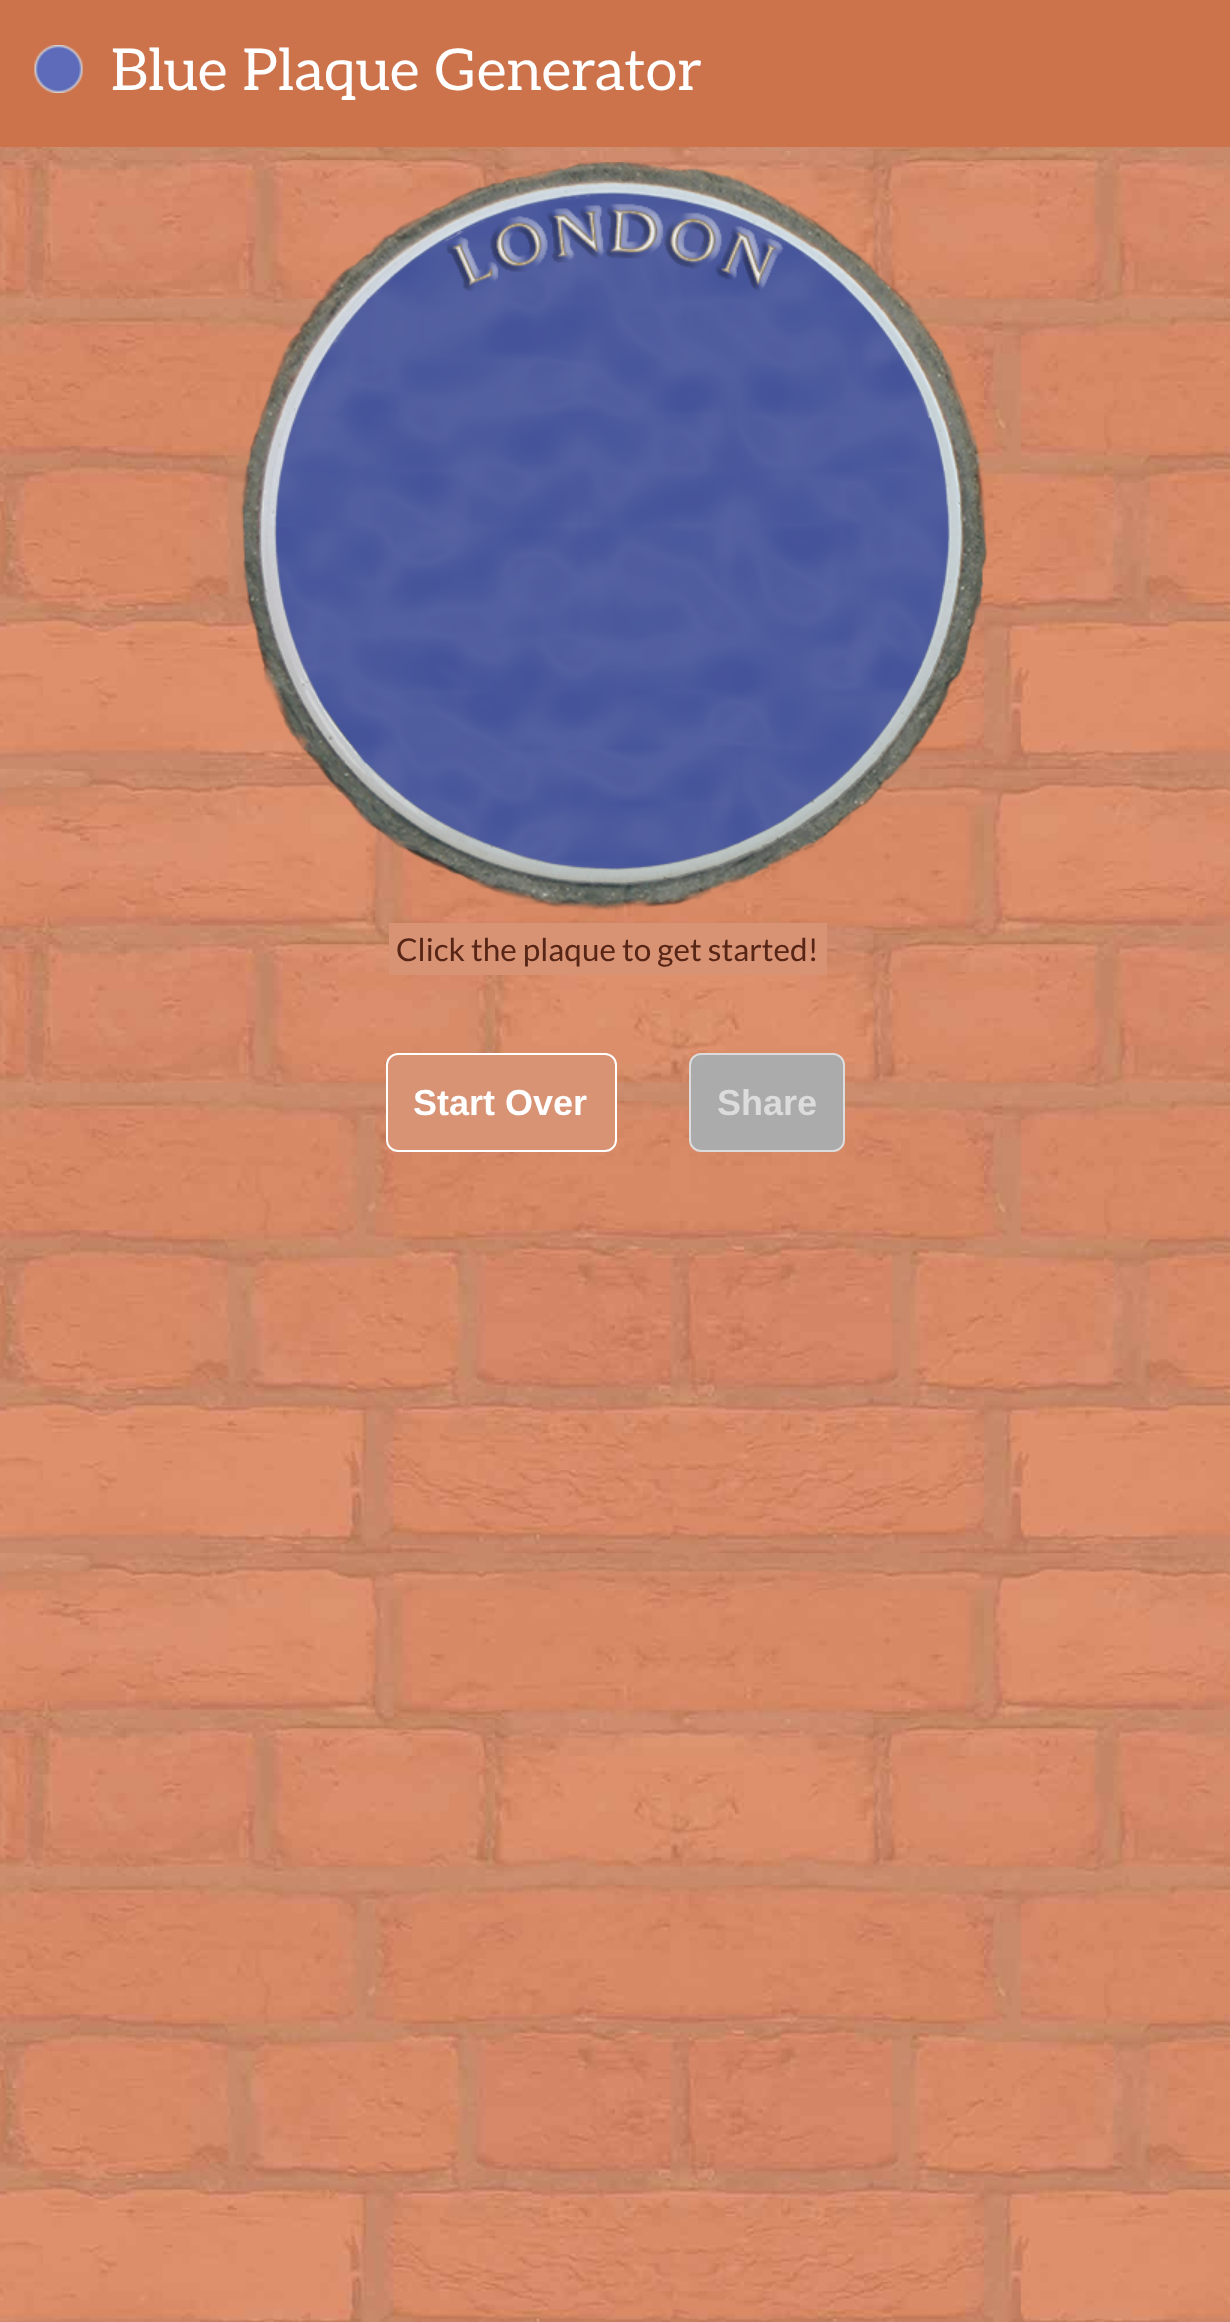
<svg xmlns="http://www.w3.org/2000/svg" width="1230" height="2322">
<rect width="100%" height="100%" fill="#fff"/>
<image x="0" y="147" width="1230" height="2175" href="media/1.png"/>
<rect width="1230" height="147" fill="#cd734c"/>
<image x="34" y="45" width="49" height="48" href="media/2.png"/>
<text x="111" y="90" style="font-family:Aleo;font-size:57.75px;fill:#fff">Blue Plaque Generator</text>
<image x="241" y="162" width="747" height="749" href="media/3.png"/>
<rect x="389" y="923" width="438" height="52" fill="#d89274"/>
<text x="396" y="961" style="font-family:Lato;font-size:31.5px;fill:#562515">Click the plaque to get started!</text>
<rect x="387" y="1054" width="229" height="97" rx="11" fill="#d89274" stroke="#fff" stroke-width="2"/>
<text x="413" y="1115" style="font-family:Liberation Sans;font-size:36px;font-weight:bold;fill:#fff">Start Over</text>
<rect x="690" y="1054" width="154" height="97" rx="11" fill="#ababab" stroke="#dcdcdc" stroke-width="2"/>
<text x="717" y="1115" style="font-family:Liberation Sans;font-size:36px;font-weight:bold;fill:#dcdcdc">Share</text>
</svg>
